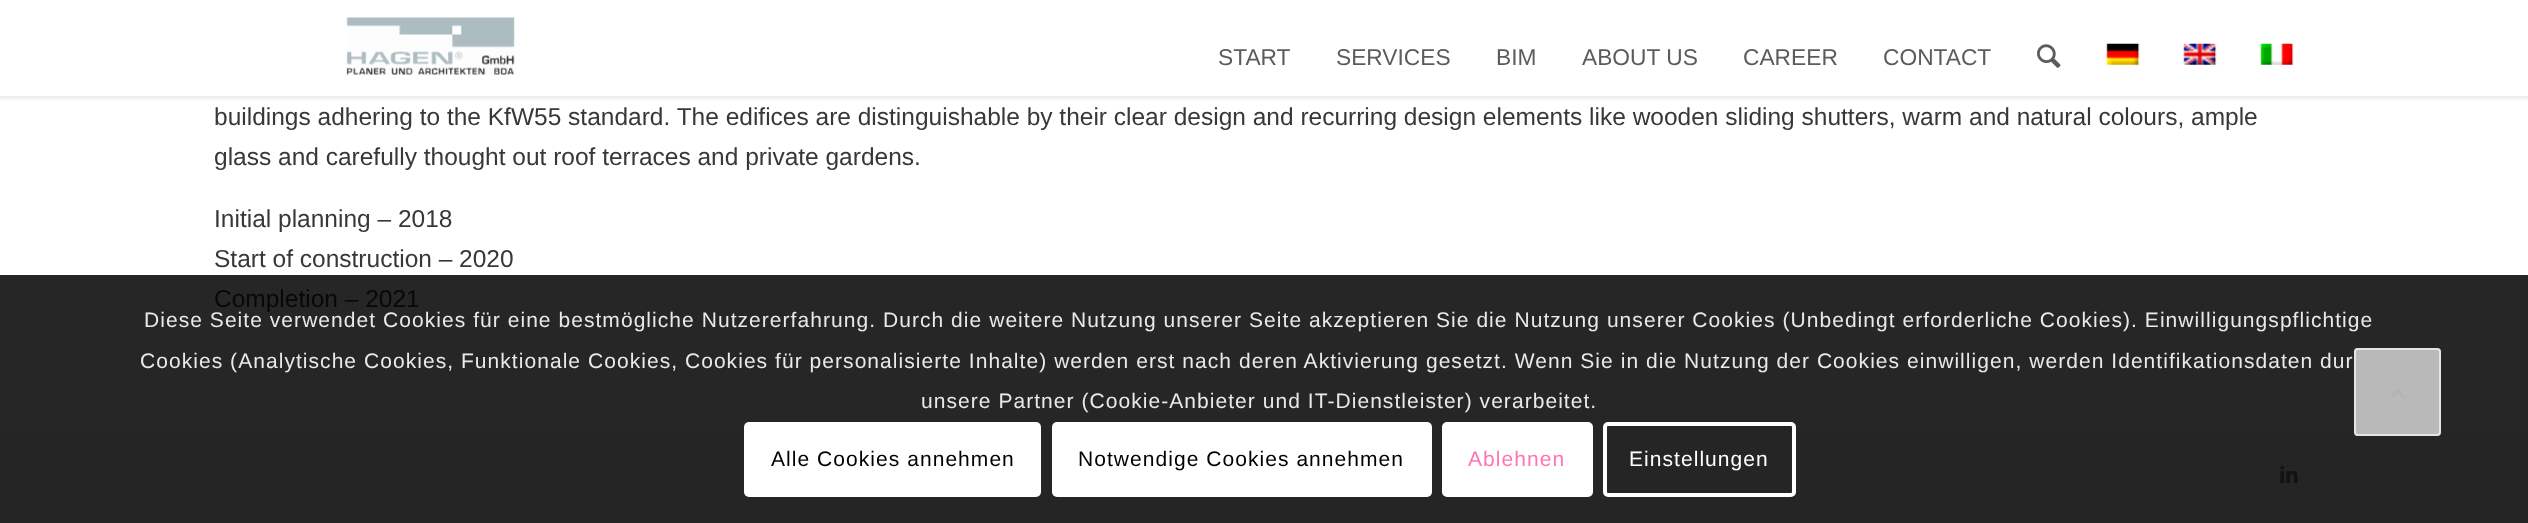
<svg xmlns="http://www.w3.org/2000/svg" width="2528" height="523">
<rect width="100%" height="100%" fill="#fff"/>
<rect x="-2" y="-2" width="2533" height="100" fill="#0000001a" filter="blur(2px)"/>
<rect width="2528" height="96" fill="#fff"/>
<image x="346" y="17" width="169" height="58" href="media/1.png"/>
<text x="1218" y="65" style="font-family:Liberation Sans;font-size:22.75px;fill:#5c5c5c">START</text>
<text x="1336" y="65" style="font-family:Liberation Sans;font-size:22.75px;fill:#5c5c5c">SERVICES</text>
<text x="1496" y="65" style="font-family:Liberation Sans;font-size:22.75px;fill:#5c5c5c">BIM</text>
<text x="1582" y="65" style="font-family:Liberation Sans;font-size:22.75px;fill:#5c5c5c">ABOUT US</text>
<text x="1743" y="65" style="font-family:Liberation Sans;font-size:22.75px;fill:#5c5c5c">CAREER</text>
<text x="1883" y="65" style="font-family:Liberation Sans;font-size:22.75px;fill:#5c5c5c">CONTACT</text>
<image x="2037" y="44" width="24" height="24" href="media/2.png"/>
<image x="2106" y="43" width="34" height="22" href="media/3.png"/>
<image x="2183" y="43" width="34" height="22" href="media/4.png"/>
<image x="2260" y="43" width="34" height="22" href="media/5.png"/>
<rect y="275" width="2528" height="154" fill="#262626"/>
<text x="214" y="125" style="font-family:Liberation Sans;font-size:24.5px;fill:#383838">buildings adhering to the KfW55 standard. The edifices are distinguishable by their clear design and recurring design elements like wooden sliding shutters, warm and natural colours, ample</text>
<text x="214" y="165" style="font-family:Liberation Sans;font-size:24.5px;fill:#383838">glass and carefully thought out roof terraces and private gardens.</text>
<text x="214" y="227" style="font-family:Liberation Sans;font-size:24.5px;fill:#383838">Initial planning – 2018</text>
<text x="214" y="267" style="font-family:Liberation Sans;font-size:24.5px;fill:#383838">Start of construction – 2020</text>
<text x="214" y="307" style="font-family:Liberation Sans;font-size:24.5px;fill:#080808">Completion – 2021</text>
<rect y="429" width="2528" height="94" fill="#252525"/>
<image x="2280" y="466" width="18" height="17" href="media/6.png"/>
<text x="144" y="327" style="font-family:Liberation Sans;font-size:21px;letter-spacing:1.05px;fill:#e9e9e9">Diese Seite verwendet Cookies für eine bestmögliche Nutzererfahrung. Durch die weitere Nutzung unserer Seite akzeptieren Sie die Nutzung unserer Cookies (Unbedingt erforderliche Cookies). Einwilligungspflichtige</text>
<text x="140" y="368" style="font-family:Liberation Sans;font-size:21px;letter-spacing:1.05px;fill:#e9e9e9">Cookies (Analytische Cookies, Funktionale Cookies, Cookies für personalisierte Inhalte) werden erst nach deren Aktivierung gesetzt. Wenn Sie in die Nutzung der Cookies einwilligen, werden Identifikationsdaten dur</text>
<text x="921" y="408" style="font-family:Liberation Sans;font-size:21px;letter-spacing:1.05px;fill:#e9e9e9">unsere Partner (Cookie-Anbieter und IT-Dienstleister) verarbeitet.</text>
<rect x="744" y="422" width="297" height="75" rx="5" fill="#fff"/>
<text x="771" y="466" style="font-family:Liberation Sans;font-size:21px;letter-spacing:1.05px;fill:#000">Alle Cookies annehmen</text>
<rect x="1052" y="422" width="380" height="75" rx="5" fill="#fff"/>
<text x="1078" y="466" style="font-family:Liberation Sans;font-size:21px;letter-spacing:1.05px;fill:#000">Notwendige Cookies annehmen</text>
<rect x="1444" y="424" width="147" height="71" rx="3" fill="#fff" stroke="#fff" stroke-width="4"/>
<text x="1468" y="466" style="font-family:Liberation Sans;font-size:21px;letter-spacing:1.05px;fill:#ff75b5">Ablehnen</text>
<rect x="1605" y="424" width="189" height="71" rx="3" fill="none" stroke="#fff" stroke-width="4"/>
<text x="1629" y="466" style="font-family:Liberation Sans;font-size:21px;letter-spacing:1.05px;fill:#fff">Einstellungen</text>
<rect x="2354" y="348" width="87" height="88" rx="4" fill="#f8f8f8b3"/>
<rect x="2355" y="349" width="85" height="86" rx="3" fill="none" stroke="#f8f8f8b3" stroke-width="2"/>
<image x="2391" y="390" width="14" height="8" href="media/7.png"/>
</svg>
